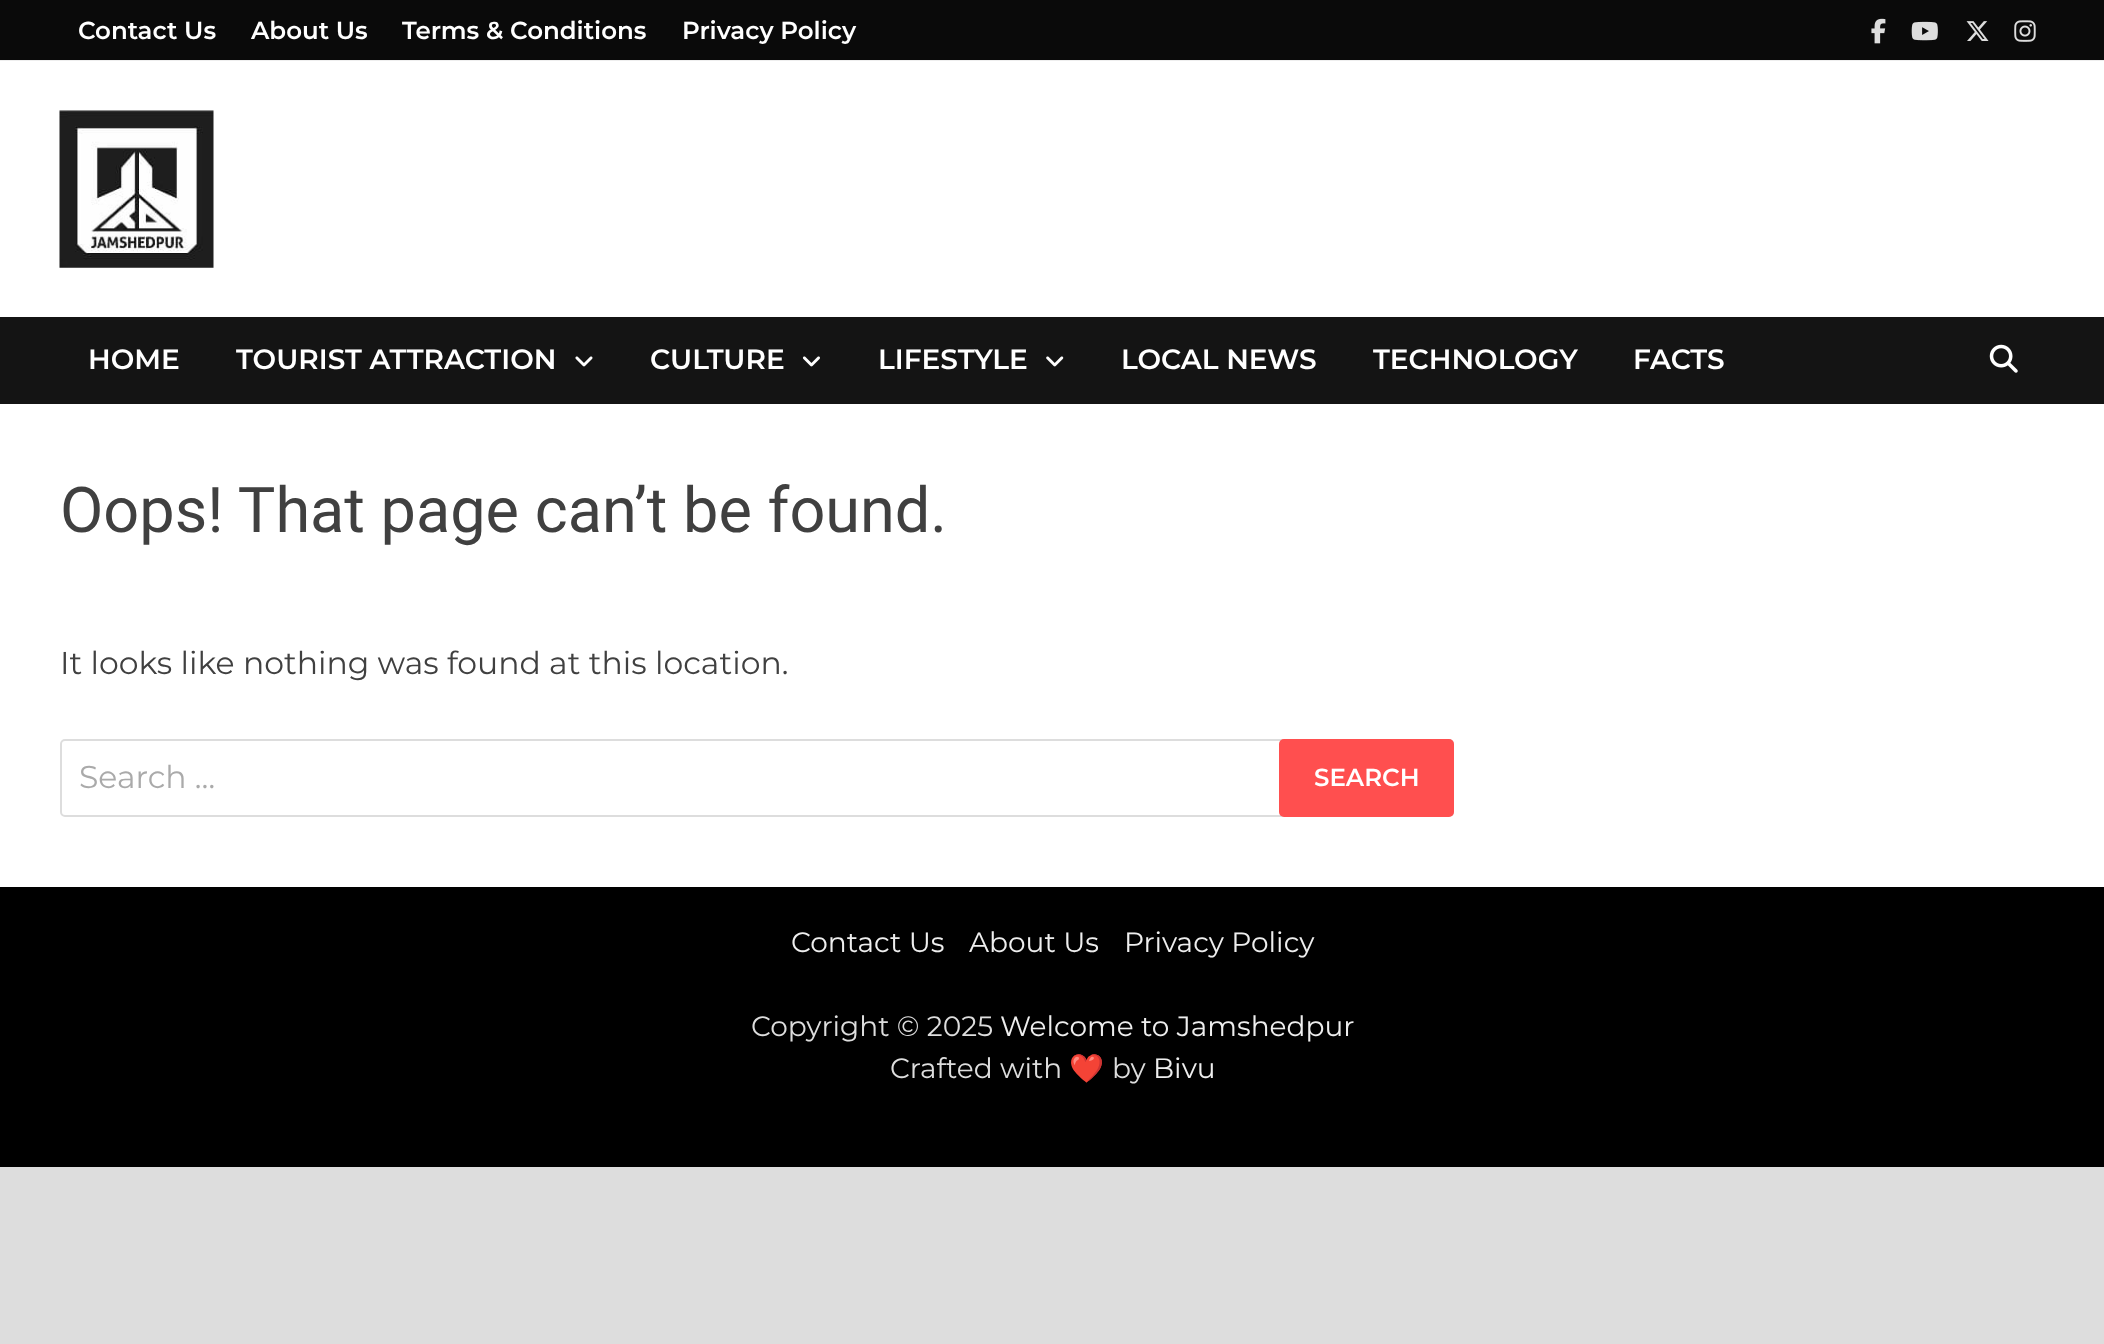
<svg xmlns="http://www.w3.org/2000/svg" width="2104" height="1344">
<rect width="100%" height="100%" fill="#ddd"/>
<rect y="404" width="2104" height="483" fill="#fff"/>
<rect width="2104" height="60" fill="#0a0a0a"/>
<rect y="60" width="2104" height="1" fill="#eee"/>
<text x="78" y="39" style="font-family:Montserrat;font-size:24.5px;font-weight:600;fill:#fff">Contact Us</text>
<text x="251" y="39" style="font-family:Montserrat;font-size:24.5px;font-weight:600;fill:#fff">About Us</text>
<text x="402" y="39" style="font-family:Montserrat;font-size:24.5px;font-weight:600;fill:#fff">Terms &amp; Conditions</text>
<text x="682" y="39" style="font-family:Montserrat;font-size:24.5px;font-weight:600;fill:#fff">Privacy Policy</text>
<image x="1871" y="18" width="15" height="26" href="media/1.png"/>
<image x="1911" y="21" width="27" height="20" href="media/2.png"/>
<image x="1966" y="21" width="23" height="20" href="media/3.png"/>
<image x="2014" y="20" width="22" height="22" href="media/4.png"/>
<rect y="61" width="2104" height="256" fill="#fff"/>
<image x="59" y="110" width="155" height="158" href="media/5.png"/>
<rect y="317" width="2104" height="87" fill="#141414"/>
<text x="88" y="369" style="font-family:Montserrat;font-size:28px;font-weight:600;fill:#fff">HOME</text>
<text x="236" y="369" style="font-family:Montserrat;font-size:28px;font-weight:600;fill:#fff">TOURIST ATTRACTION</text>
<image x="575" y="356" width="18" height="11" href="media/6.png"/>
<text x="650" y="369" style="font-family:Montserrat;font-size:28px;font-weight:600;fill:#fff">CULTURE</text>
<image x="802" y="356" width="18" height="11" href="media/7.png"/>
<text x="878" y="369" style="font-family:Montserrat;font-size:28px;font-weight:600;fill:#fff">LIFESTYLE</text>
<image x="1046" y="356" width="18" height="11" href="media/8.png"/>
<text x="1121" y="369" style="font-family:Montserrat;font-size:28px;font-weight:600;fill:#fff">LOCAL NEWS</text>
<text x="1373" y="369" style="font-family:Montserrat;font-size:28px;font-weight:600;fill:#fff">TECHNOLOGY</text>
<text x="1633" y="369" style="font-family:Montserrat;font-size:28px;font-weight:600;fill:#fff">FACTS</text>
<image x="1989" y="344" width="29" height="29" href="media/9.png"/>
<text x="60" y="532" style="font-family:Roboto;font-size:63px;fill:#404040">Oops! That page can’t be found.</text>
<text x="60" y="674" style="font-family:Montserrat;font-size:31.5px;fill:#404040">It looks like nothing was found at this location.</text>
<rect x="61" y="740" width="1392" height="76" rx="4" fill="none" stroke="#ddd" stroke-width="2"/>
<text x="79" y="788" style="font-family:Montserrat;font-size:31.5px;fill:#aaa">Search …</text>
<rect x="1279" y="739" width="175" height="78" rx="5" fill="#ff4f4f"/>
<text x="1314" y="786" style="font-family:Montserrat;font-size:24.5px;font-weight:600;fill:#fff">SEARCH</text>
<rect y="887" width="2104" height="280" fill="#000"/>
<text x="791" y="952" style="font-family:Montserrat;font-size:28px;fill:#eee">Contact Us</text>
<text x="969" y="952" style="font-family:Montserrat;font-size:28px;fill:#eee">About Us</text>
<text x="1124" y="952" style="font-family:Montserrat;font-size:28px;fill:#eee">Privacy Policy</text>
<text x="751" y="1036" style="font-family:Montserrat;font-size:28px;fill:#ddd">Copyright © 2025</text>
<text x="1000" y="1036" style="font-family:Montserrat;font-size:28px;fill:#eee">Welcome to Jamshedpur</text>
<text x="890" y="1078" style="font-family:Montserrat;font-size:28px;fill:#ddd">Crafted with</text>
<text x="1069" y="1078" style="font-family:Noto Color Emoji;font-size:28px;fill:#ddd">❤️</text>
<text x="1112" y="1078" style="font-family:Montserrat;font-size:28px;fill:#ddd">by</text>
<text x="1153" y="1078" style="font-family:Montserrat;font-size:28px;fill:#eee">Bivu</text>
</svg>
